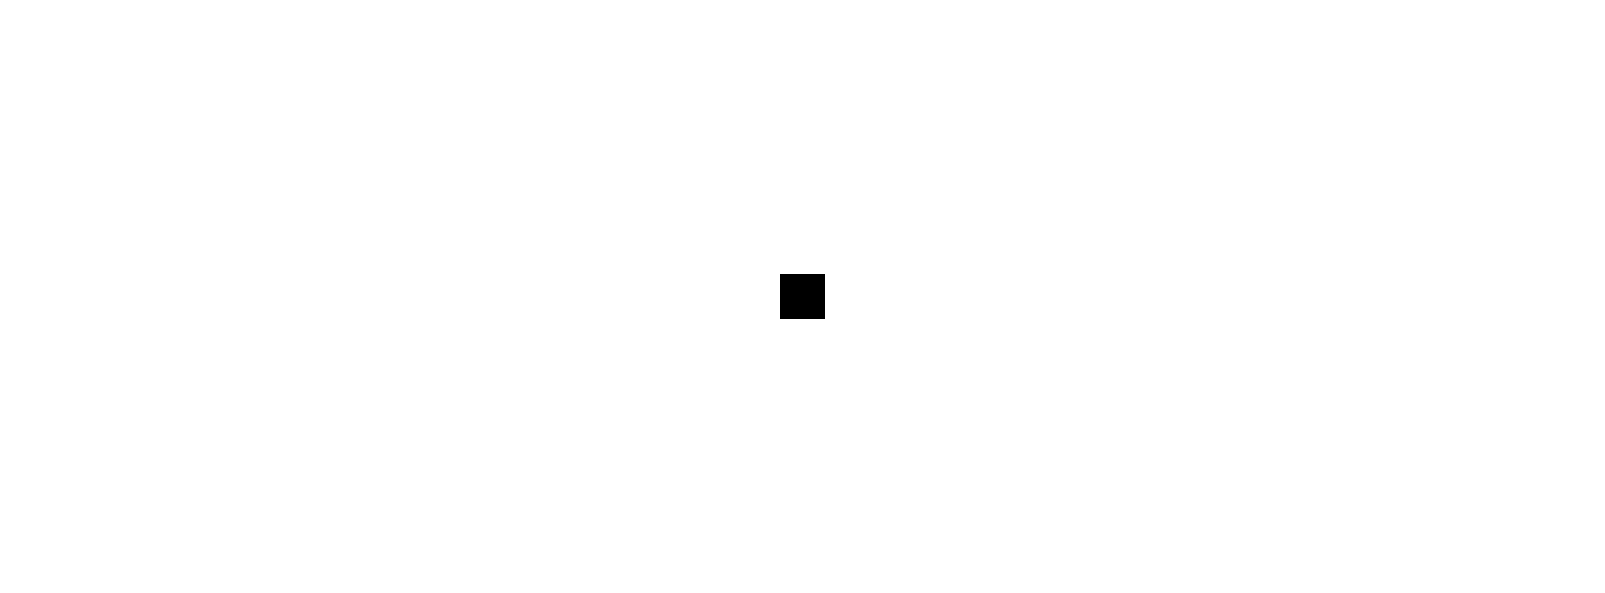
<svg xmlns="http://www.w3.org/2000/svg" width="1605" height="593">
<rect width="100%" height="100%" fill="#fff"/>
<rect x="780" y="274" width="45" height="45" fill="#000"/>
</svg>
